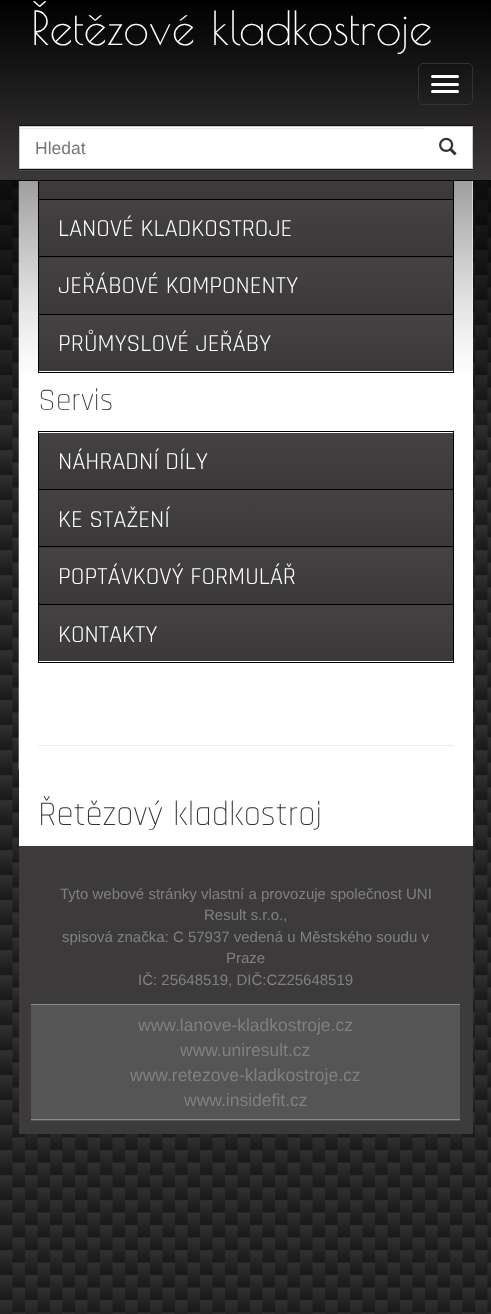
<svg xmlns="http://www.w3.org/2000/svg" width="491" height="1314">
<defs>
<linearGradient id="g1" gradientUnits="userSpaceOnUse" x1="246" y1="0" x2="246" y2="180"><stop offset="0" stop-color="#000"/><stop offset="1" stop-color="#3b3839"/></linearGradient>
<linearGradient id="g2" gradientUnits="userSpaceOnUse" x1="246" y1="142" x2="246" y2="200"><stop offset="0" stop-color="#454243"/><stop offset="1" stop-color="#3b3839"/></linearGradient>
<linearGradient id="g3" gradientUnits="userSpaceOnUse" x1="246" y1="200" x2="246" y2="258"><stop offset="0" stop-color="#454243"/><stop offset="1" stop-color="#3b3839"/></linearGradient>
<linearGradient id="g4" gradientUnits="userSpaceOnUse" x1="246" y1="257" x2="246" y2="315"><stop offset="0" stop-color="#454243"/><stop offset="1" stop-color="#3b3839"/></linearGradient>
<linearGradient id="g5" gradientUnits="userSpaceOnUse" x1="246" y1="315" x2="246" y2="371"><stop offset="0" stop-color="#454243"/><stop offset="1" stop-color="#3b3839"/></linearGradient>
<linearGradient id="g6" gradientUnits="userSpaceOnUse" x1="246" y1="433" x2="246" y2="490"><stop offset="0" stop-color="#454243"/><stop offset="1" stop-color="#3b3839"/></linearGradient>
<linearGradient id="g7" gradientUnits="userSpaceOnUse" x1="246" y1="490" x2="246" y2="548"><stop offset="0" stop-color="#454243"/><stop offset="1" stop-color="#3b3839"/></linearGradient>
<linearGradient id="g8" gradientUnits="userSpaceOnUse" x1="246" y1="548" x2="246" y2="605"><stop offset="0" stop-color="#454243"/><stop offset="1" stop-color="#3b3839"/></linearGradient>
<linearGradient id="g9" gradientUnits="userSpaceOnUse" x1="246" y1="605" x2="246" y2="661"><stop offset="0" stop-color="#454243"/><stop offset="1" stop-color="#3b3839"/></linearGradient>
</defs>
<rect width="100%" height="100%" fill="#fff"/>
<image x="0" y="181" width="491" height="1133" href="media/1.png"/>
<image x="0" y="181" width="491" height="233" href="media/2.png"/>
<rect x="19" y="181" width="454" height="665" fill="#fff"/>
<image x="18" y="181" width="455" height="589" href="media/4.png"/>
<rect x="38.5" y="141.5" width="415" height="231" fill="none" stroke="#000"/>
<rect width="491" height="180" fill="url(#g1)"/>
<rect y="180" width="491" height="1" fill="#080808"/>
<text x="31" y="45" style="font-family:Poiret One;font-size:46.25px;fill:#fff">Řetězové kladkostroje</text>
<rect x="418.5" y="63.5" width="54" height="41" rx="4.5" fill="none" stroke="#333"/>
<rect x="431" y="75" width="28" height="3" rx="1.5" fill="#fff"/>
<rect x="431" y="83" width="28" height="3" rx="1.5" fill="#fff"/>
<rect x="431" y="90" width="28" height="3" rx="1.5" fill="#fff"/>
<path d="M19 170v1h454v-45h-1v44z" fill="#ffffff1a"/>
<rect x="19" y="125" width="454" height="1" fill="#101010"/>
<rect x="19" y="169" width="454" height="1" fill="#101010"/>
<rect x="423.5" y="126.5" width="49" height="42" fill="#fff" stroke="#ccc"/>
<rect x="20" y="127" width="404" height="41" fill="#fff"/>
<rect x="20" y="128" width="404" height="1" fill="#ececec"/>
<rect x="19" y="126" width="405" height="1" fill="#ccc"/>
<rect x="19" y="168" width="405" height="1" fill="#ccc"/>
<rect x="19" y="126" width="1" height="43" fill="#ccc"/>
<text x="35" y="154" style="font-family:Liberation Sans;font-size:17.5px;fill:#777">Hledat</text>
<image x="439" y="137" width="18" height="19" href="media/3.png"/>
<rect x="39" y="181" width="414" height="18" fill="url(#g2)"/>
<rect x="39" y="199" width="414" height="1" fill="#000"/>
<rect x="39" y="200" width="414" height="58" fill="url(#g3)"/>
<rect x="39" y="256" width="414" height="1" fill="#000"/>
<text x="58" y="236" style="font-family:Rajdhani;font-size:24.5px;fill:#fff">LANOVÉ KLADKOSTROJE</text>
<rect x="39" y="258" width="414" height="56" fill="url(#g4)"/>
<rect x="39" y="314" width="414" height="1" fill="#000"/>
<text x="58" y="293" style="font-family:Rajdhani;font-size:24.5px;fill:#fff">JEŘÁBOVÉ KOMPONENTY</text>
<rect x="39" y="315" width="414" height="56" fill="url(#g5)"/>
<text x="58" y="351" style="font-family:Rajdhani;font-size:24.5px;fill:#fff">PRŮMYSLOVÉ JEŘÁBY</text>
<text x="38" y="410" style="font-family:Rajdhani;font-size:31.5px;font-weight:300;fill:#333">Servis</text>
<rect x="38.5" y="431.5" width="415" height="231" fill="none" stroke="#000"/>
<rect x="39" y="433" width="414" height="56" fill="url(#g6)"/>
<rect x="39" y="489" width="414" height="1" fill="#000"/>
<text x="58" y="469" style="font-family:Rajdhani;font-size:24.5px;fill:#fff">NÁHRADNÍ DÍLY</text>
<rect x="39" y="490" width="414" height="58" fill="url(#g7)"/>
<rect x="39" y="546" width="414" height="1" fill="#000"/>
<text x="58" y="527" style="font-family:Rajdhani;font-size:24.5px;fill:#fff">KE STAŽENÍ</text>
<rect x="39" y="548" width="414" height="56" fill="url(#g8)"/>
<rect x="39" y="604" width="414" height="1" fill="#000"/>
<text x="58" y="584" style="font-family:Rajdhani;font-size:24.5px;fill:#fff">POPTÁVKOVÝ FORMULÁŘ</text>
<rect x="39" y="605" width="414" height="56" fill="url(#g9)"/>
<text x="58" y="642" style="font-family:Rajdhani;font-size:24.5px;fill:#fff">KONTAKTY</text>
<rect x="38" y="745" width="416" height="1" fill="#eee"/>
<text x="38" y="825" style="font-family:Rajdhani;font-size:34.75px;font-weight:300;fill:#333">Řetězový kladkostroj</text>
<rect x="19" y="846" width="454" height="288" fill="#3d3a3b"/>
<text x="60" y="899" style="font-family:Liberation Sans;font-size:15px;fill:#808080">Tyto webové stránky vlastní a provozuje společnost UNI</text>
<text x="204" y="920" style="font-family:Liberation Sans;font-size:15px;fill:#808080">Result s.r.o.,</text>
<text x="62" y="942" style="font-family:Liberation Sans;font-size:15px;fill:#808080">spisová značka: C 57937 vedená u Městského soudu v</text>
<text x="226" y="963" style="font-family:Liberation Sans;font-size:15px;fill:#808080">Praze</text>
<text x="138" y="985" style="font-family:Liberation Sans;font-size:15px;fill:#808080">IČ: 25648519, DIČ:CZ25648519</text>
<rect x="31" y="1004" width="429" height="1" fill="#898989"/>
<rect x="31" y="1005" width="429" height="114" fill="#555"/>
<text x="138" y="1031" style="font-family:Liberation Sans;font-size:17.5px;fill:#808080">www.lanove-kladkostroje.cz</text>
<text x="180" y="1056" style="font-family:Liberation Sans;font-size:17.5px;fill:#808080">www.uniresult.cz</text>
<text x="130" y="1081" style="font-family:Liberation Sans;font-size:17.5px;fill:#808080">www.retezove-kladkostroje.cz</text>
<text x="184" y="1106" style="font-family:Liberation Sans;font-size:17.5px;fill:#808080">www.insidefit.cz</text>
<rect x="31" y="1119" width="429" height="1" fill="#898989"/>
<rect x="31" y="1120" width="429" height="1" fill="#555"/>
</svg>
